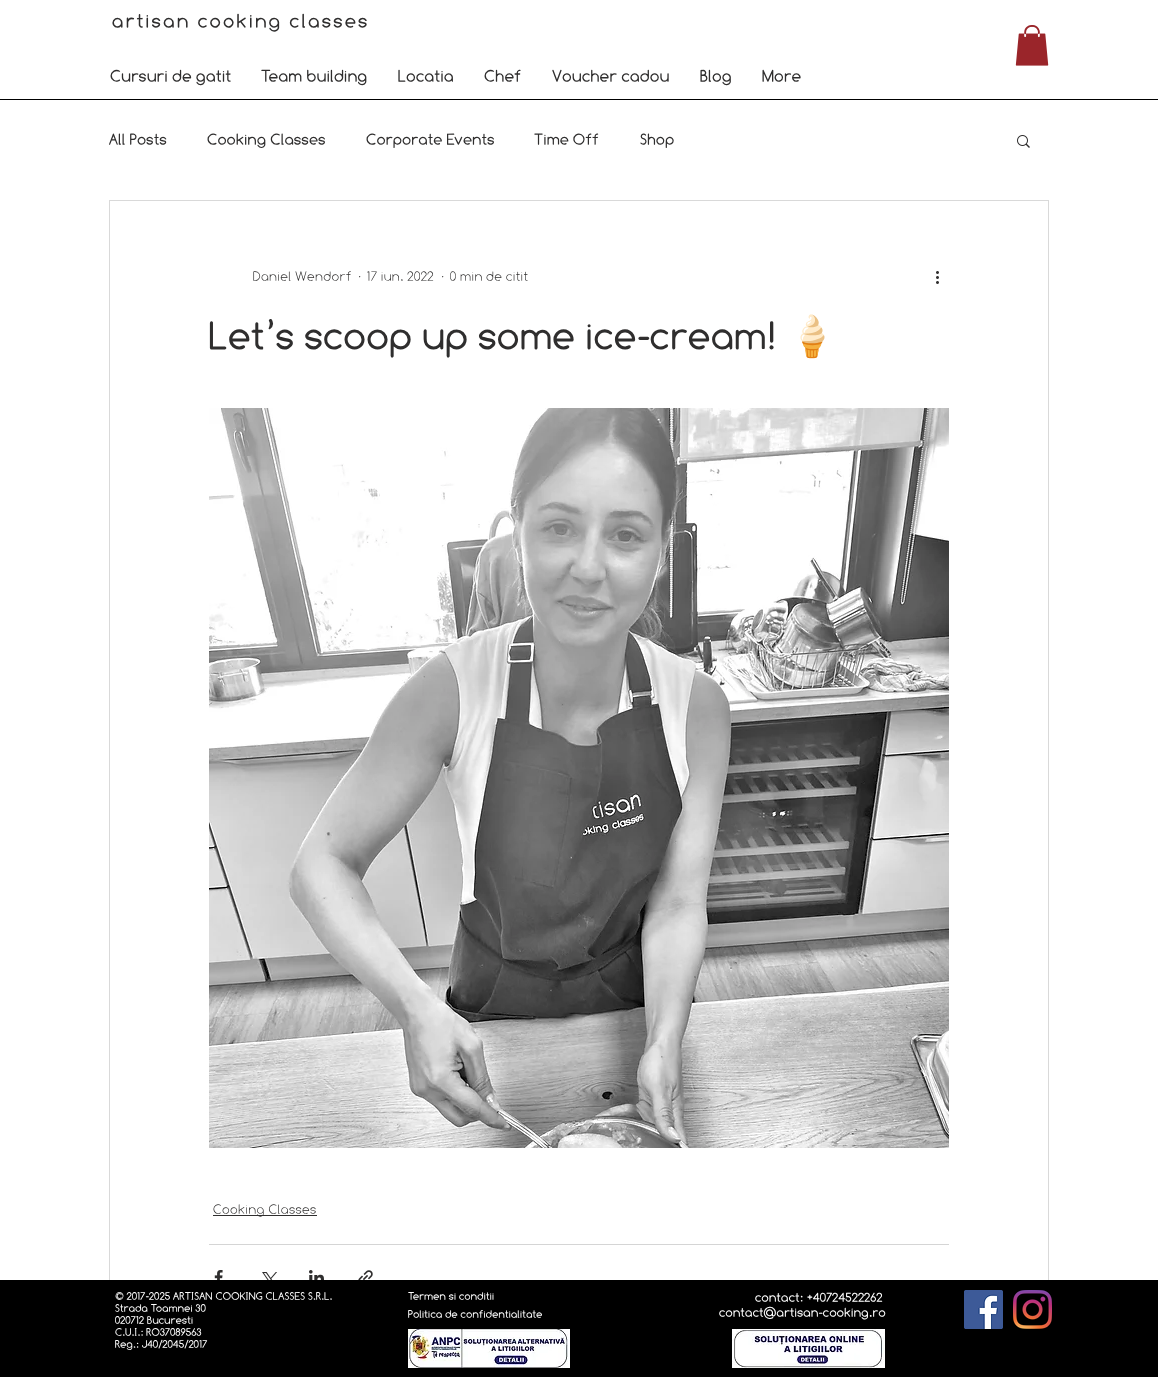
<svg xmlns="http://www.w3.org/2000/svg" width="1158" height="1377">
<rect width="100%" height="100%" fill="#fff"/>
<text x="112" y="28" style="font-family:'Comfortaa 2';font-size:20px;font-weight:bold;letter-spacing:2px;fill:#2f2e2e">artisan cooking classes</text>
<image x="1015" y="25" width="34" height="41" href="media/1.png"/>
<text x="110" y="82" style="font-family:'Comfortaa 2';font-size:17px;font-weight:bold;fill:#2f2e2e">Cursuri de gatit</text>
<text x="261" y="82" style="font-family:'Comfortaa 2';font-size:17px;font-weight:bold;fill:#2f2e2e">Team building</text>
<text x="398" y="82" style="font-family:'Comfortaa 2';font-size:17px;font-weight:bold;fill:#2f2e2e">Locatia</text>
<text x="484" y="82" style="font-family:'Comfortaa 2';font-size:17px;font-weight:bold;fill:#2f2e2e">Chef</text>
<text x="552" y="82" style="font-family:'Comfortaa 2';font-size:17px;font-weight:bold;fill:#2f2e2e">Voucher cadou</text>
<text x="700" y="82" style="font-family:'Comfortaa 2';font-size:17px;font-weight:bold;fill:#2f2e2e">Blog</text>
<text x="762" y="82" style="font-family:'Comfortaa 2';font-size:17px;font-weight:bold;fill:#2f2e2e">More</text>
<rect y="99" width="1158" height="1" fill="#000"/>
<text x="109" y="145" style="font-family:Comfortaa;font-size:16px;font-weight:bold;fill:#2f2e2e">All Posts</text>
<text x="207" y="145" style="font-family:Comfortaa;font-size:16px;font-weight:bold;fill:#2f2e2e">Cooking Classes</text>
<text x="366" y="145" style="font-family:Comfortaa;font-size:16px;font-weight:bold;fill:#2f2e2e">Corporate Events</text>
<text x="534" y="145" style="font-family:Comfortaa;font-size:16px;font-weight:bold;fill:#2f2e2e">Time Off</text>
<text x="640" y="145" style="font-family:Comfortaa;font-size:16px;font-weight:bold;fill:#2f2e2e">Shop</text>
<image x="1017" y="135" width="13" height="13" href="media/2.png"/>
<rect x="109.5" y="200.5" width="939" height="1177" fill="none" stroke="#d9d9d9"/>
<text x="253" y="281" style="font-family:Comfortaa;font-size:14px;font-weight:100;fill:#2f2e2e">Daniel Wendorf</text>
<text x="358" y="281" style="font-family:Comfortaa;font-size:14px;font-weight:100;fill:#2f2e2e">·</text>
<text x="367" y="281" style="font-family:Comfortaa;font-size:14px;font-weight:100;fill:#2f2e2e">17 iun. 2022</text>
<text x="441" y="281" style="font-family:Comfortaa;font-size:14px;font-weight:100;fill:#2f2e2e">·</text>
<text x="450" y="281" style="font-family:Comfortaa;font-size:14px;font-weight:100;fill:#2f2e2e">0 min de citit</text>
<image x="936" y="271" width="3" height="13" href="media/3.png"/>
<text x="209" y="350" style="font-family:Comfortaa;font-size:40px;font-weight:bold;fill:#2f2e2e">Let’s scoop up some ice-cream!</text>
<text x="787" y="350" style="font-family:Noto Color Emoji;font-size:40px;font-weight:bold;fill:#2f2e2e">🍦</text>
<image x="209" y="408" width="740" height="740" href="media/4.png"/>
<rect x="213" y="1215" width="104" height="1" fill="#2f2e2e"/>
<text x="213" y="1214" style="font-family:Comfortaa;font-size:14px;font-weight:100;fill:#2f2e2e">Cooking Classes</text>
<rect x="209" y="1244" width="740" height="1" fill="#d5d5d5"/>
<image x="214" y="1270" width="9" height="10" href="media/5.png"/>
<image x="262" y="1272" width="15" height="8" href="media/6.png"/>
<image x="309" y="1270" width="15" height="10" href="media/7.png"/>
<image x="358" y="1270" width="15" height="10" href="media/8.png"/>
<rect y="1280" width="1158" height="97" fill="#000"/>
<text x="115" y="1300" style="font-family:Comfortaa;font-size:11px;font-weight:bold;fill:#fff">© 2017-2025 ARTISAN COOKING CLASSES S.R.L.</text>
<text x="115" y="1312" style="font-family:Comfortaa;font-size:11px;font-weight:bold;fill:#fff">Strada Toamnei 30</text>
<text x="115" y="1324" style="font-family:Comfortaa;font-size:11px;font-weight:bold;fill:#fff">020712 Bucuresti</text>
<text x="115" y="1336" style="font-family:Comfortaa;font-size:11px;font-weight:bold;fill:#fff">C.U.I.: RO37089563</text>
<text x="115" y="1348" style="font-family:Comfortaa;font-size:11px;font-weight:bold;fill:#fff">Reg.: J40/2045/2017</text>
<text x="408" y="1300" style="font-family:Comfortaa;font-size:11px;font-weight:bold;fill:#fff">Termen si conditii</text>
<text x="755" y="1302" style="font-family:Comfortaa;font-size:13px;font-weight:bold;fill:#fff">contact: +40724522262</text>
<text x="719" y="1317" style="font-family:Comfortaa;font-size:13px;font-weight:bold;fill:#fff">contact@artisan-cooking.ro</text>
<image x="964" y="1290" width="39" height="39" href="media/9.png"/>
<image x="1013" y="1290" width="39" height="39" href="media/10.png"/>
<text x="408" y="1318" style="font-family:Comfortaa;font-size:11px;font-weight:bold;fill:#fff">Politica de confidentialitate</text>
<image x="408" y="1329" width="162" height="39" href="media/11.png"/>
<image x="732" y="1329" width="153" height="39" href="media/12.png"/>
</svg>
